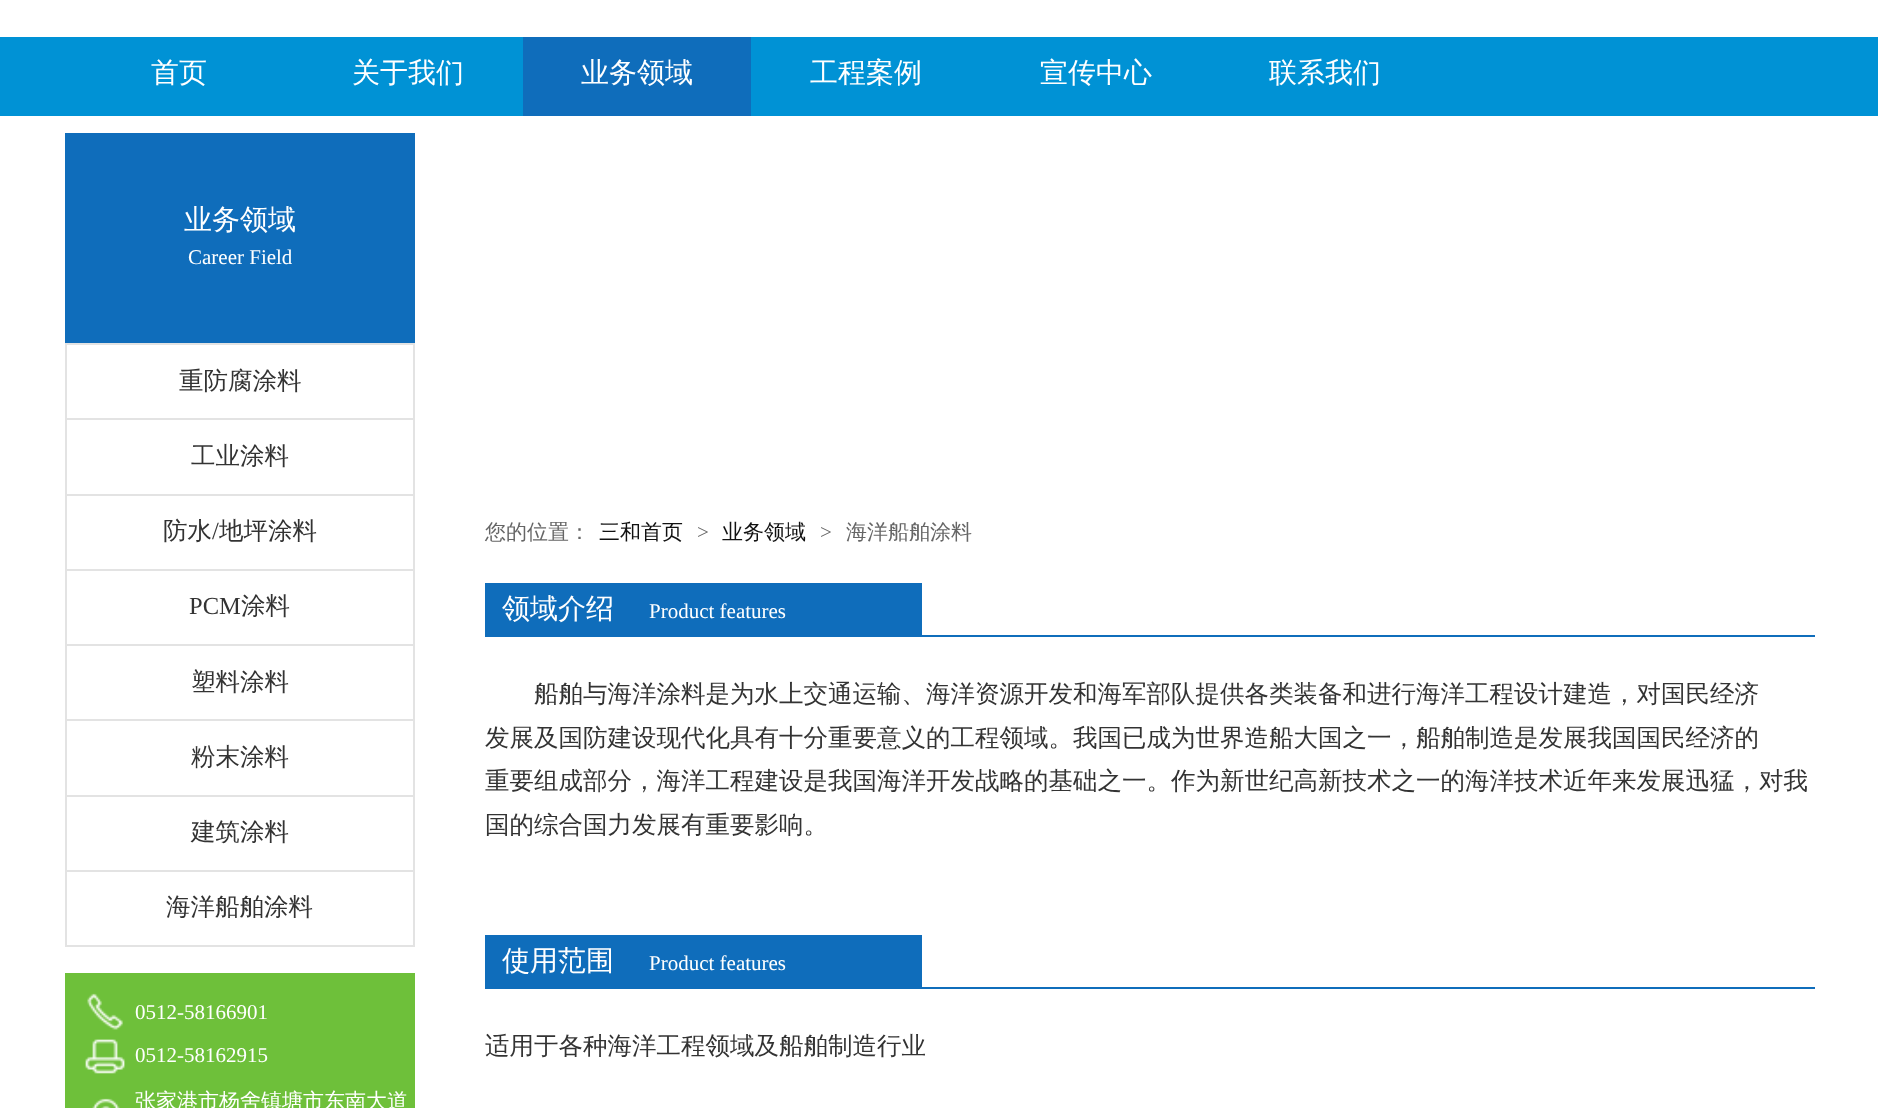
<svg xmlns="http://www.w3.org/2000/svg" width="1878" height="1108">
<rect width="100%" height="100%" fill="#fff"/>
<rect y="37" width="1878" height="79" fill="#0092d5"/>
<text x="151" y="82" style="font-family:WenQuanYi Zen Hei;font-size:28px;font-weight:500;fill:#fff">首页</text>
<text x="352" y="82" style="font-family:WenQuanYi Zen Hei;font-size:28px;font-weight:500;fill:#fff">关于我们</text>
<rect x="523" y="37" width="228" height="79" fill="#0f6dbb"/>
<text x="581" y="82" style="font-family:WenQuanYi Zen Hei;font-size:28px;font-weight:500;fill:#fff">业务领域</text>
<text x="810" y="82" style="font-family:WenQuanYi Zen Hei;font-size:28px;font-weight:500;fill:#fff">工程案例</text>
<text x="1040" y="82" style="font-family:WenQuanYi Zen Hei;font-size:28px;font-weight:500;fill:#fff">宣传中心</text>
<text x="1269" y="82" style="font-family:WenQuanYi Zen Hei;font-size:28px;font-weight:500;fill:#fff">联系我们</text>
<rect x="65" y="133" width="350" height="210" fill="#0f6dbb"/>
<text x="184" y="229" style="font-family:WenQuanYi Zen Hei;font-size:28px;font-weight:500;fill:#fff">业务领域</text>
<text x="188" y="264" style="font-family:Liberation Serif;font-size:21px;fill:#fff">Career Field</text>
<rect x="65" y="343" width="350" height="2" fill="#e3e3e3"/>
<rect x="413" y="343" width="2" height="604" fill="#e3e3e3"/>
<rect x="65" y="343" width="2" height="604" fill="#e3e3e3"/>
<rect x="67" y="418" width="346" height="2" fill="#e3e3e3"/>
<text x="179" y="389" style="font-family:WenQuanYi Zen Hei;font-size:24.5px;font-weight:500;fill:#333">重防腐涂料</text>
<rect x="67" y="494" width="346" height="2" fill="#e3e3e3"/>
<text x="191" y="464" style="font-family:WenQuanYi Zen Hei;font-size:24.5px;font-weight:500;fill:#333">工业涂料</text>
<rect x="67" y="569" width="346" height="2" fill="#e3e3e3"/>
<text x="163" y="539" style="font-family:WenQuanYi Zen Hei;font-size:24.5px;font-weight:500;fill:#333">防水</text>
<text x="212" y="539" style="font-family:Liberation Serif;font-size:24.5px;fill:#333">/</text>
<text x="219" y="539" style="font-family:WenQuanYi Zen Hei;font-size:24.5px;font-weight:500;fill:#333">地坪涂料</text>
<rect x="67" y="644" width="346" height="2" fill="#e3e3e3"/>
<text x="189" y="614" style="font-family:Liberation Serif;font-size:24.5px;fill:#333">PCM</text>
<text x="241" y="614" style="font-family:WenQuanYi Zen Hei;font-size:24.5px;font-weight:500;fill:#333">涂料</text>
<rect x="67" y="719" width="346" height="2" fill="#e3e3e3"/>
<text x="191" y="690" style="font-family:WenQuanYi Zen Hei;font-size:24.5px;font-weight:500;fill:#333">塑料涂料</text>
<rect x="67" y="795" width="346" height="2" fill="#e3e3e3"/>
<text x="191" y="765" style="font-family:WenQuanYi Zen Hei;font-size:24.5px;font-weight:500;fill:#333">粉末涂料</text>
<rect x="67" y="870" width="346" height="2" fill="#e3e3e3"/>
<text x="191" y="840" style="font-family:WenQuanYi Zen Hei;font-size:24.5px;font-weight:500;fill:#333">建筑涂料</text>
<rect x="67" y="945" width="346" height="2" fill="#e3e3e3"/>
<text x="166" y="915" style="font-family:WenQuanYi Zen Hei;font-size:24.5px;font-weight:500;fill:#333">海洋船舶涂料</text>
<rect x="65" y="973" width="350" height="135" fill="#6ec03a"/>
<image x="87" y="993" width="36" height="37" href="media/1.png"/>
<text x="135" y="1019" style="font-family:Liberation Serif;font-size:21px;fill:#fff">0512-58166901</text>
<image x="85" y="1039" width="40" height="35" href="media/2.png"/>
<text x="135" y="1062" style="font-family:Liberation Serif;font-size:21px;fill:#fff">0512-58162915</text>
<image x="92" y="1098" width="28" height="10" href="media/3.png"/>
<text x="135" y="1108" style="font-family:WenQuanYi Zen Hei;font-size:21px;font-weight:500;fill:#fff">张家港市杨舍镇塘市东南大道</text>
<text x="485" y="539" style="font-family:WenQuanYi Zen Hei;font-size:21px;font-weight:500;fill:#666">您的位置：</text>
<text x="599" y="539" style="font-family:WenQuanYi Zen Hei;font-size:21px;font-weight:500;fill:#111">三和首页</text>
<text x="697" y="539" style="font-family:Liberation Serif;font-size:21px;fill:#666">&gt;</text>
<text x="722" y="539" style="font-family:WenQuanYi Zen Hei;font-size:21px;font-weight:500;fill:#111">业务领域</text>
<text x="820" y="539" style="font-family:Liberation Serif;font-size:21px;fill:#666">&gt;</text>
<text x="846" y="539" style="font-family:WenQuanYi Zen Hei;font-size:21px;font-weight:500;fill:#666">海洋船舶涂料</text>
<rect x="485" y="635" width="1330" height="2" fill="#0f6dbb"/>
<rect x="485" y="583" width="437" height="52" fill="#0f6dbb"/>
<text x="502" y="618" style="font-family:WenQuanYi Zen Hei;font-size:28px;font-weight:500;fill:#fff">领域介绍</text>
<text x="649" y="618" style="font-family:Liberation Serif;font-size:21px;fill:#fff">Product features</text>
<text x="534" y="702" style="font-family:WenQuanYi Zen Hei;font-size:24.5px;font-weight:500;fill:#333">船舶与海洋涂料是为水上交通运输、海洋资源开发和海军部队提供各类装备和进行海洋工程设计建造，对国民经济</text>
<text x="485" y="746" style="font-family:WenQuanYi Zen Hei;font-size:24.5px;font-weight:500;fill:#333">发展及国防建设现代化具有十分重要意义的工程领域。我国已成为世界造船大国之一，船舶制造是发展我国国民经济的</text>
<text x="485" y="789" style="font-family:WenQuanYi Zen Hei;font-size:24.5px;font-weight:500;fill:#333">重要组成部分，海洋工程建设是我国海洋开发战略的基础之一。作为新世纪高新技术之一的海洋技术近年来发展迅猛，对我</text>
<text x="485" y="833" style="font-family:WenQuanYi Zen Hei;font-size:24.5px;font-weight:500;fill:#333">国的综合国力发展有重要影响。</text>
<rect x="485" y="987" width="1330" height="2" fill="#0f6dbb"/>
<rect x="485" y="935" width="437" height="52" fill="#0f6dbb"/>
<text x="502" y="970" style="font-family:WenQuanYi Zen Hei;font-size:28px;font-weight:500;fill:#fff">使用范围</text>
<text x="649" y="970" style="font-family:Liberation Serif;font-size:21px;fill:#fff">Product features</text>
<text x="485" y="1054" style="font-family:WenQuanYi Zen Hei;font-size:24.5px;font-weight:500;fill:#333">适用于各种海洋工程领域及船舶制造行业</text>
</svg>
